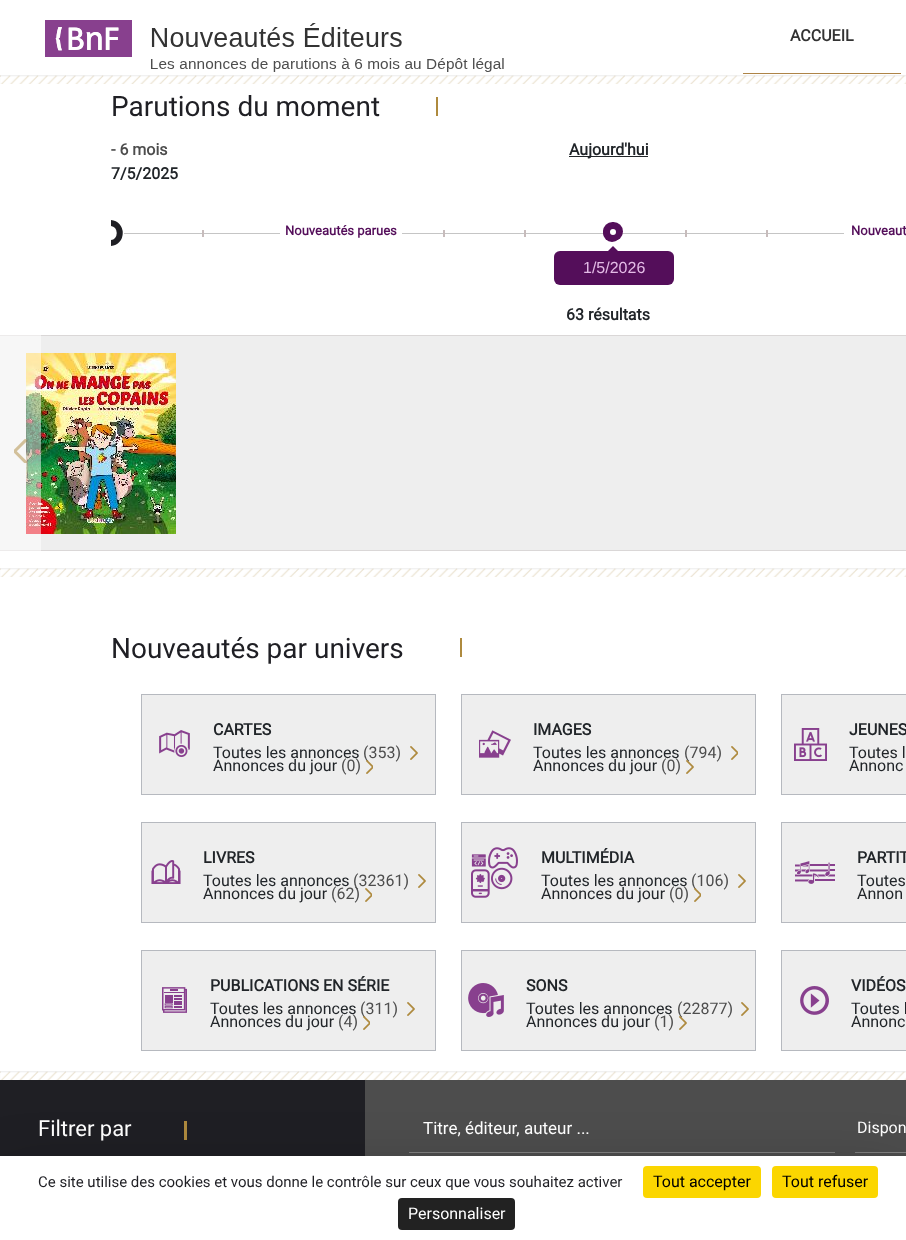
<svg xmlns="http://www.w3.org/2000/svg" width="906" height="1240">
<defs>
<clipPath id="clip1"><rect x="111" y="220" width="13" height="26"/></clipPath>
<clipPath id="clip2"><rect x="603" y="222" width="20" height="19" rx="9.5"/></clipPath>
</defs>
<rect width="100%" height="100%" fill="#fff"/>
<image x="45" y="20" width="87" height="37" href="media/1.png"/>
<image x="151" y="23" width="353" height="49" href="media/2.png"/>
<rect x="743" y="73" width="158" height="1" fill="#ae8447"/>
<text x="790" y="41" style="font-family:Roboto;font-size:16px;font-weight:bold;fill:#333">ACCUEIL</text>
<image x="0" y="74" width="906" height="10" href="media/3.png"/>
<text x="111" y="116" style="font-family:Roboto;font-size:28px;fill:#1f1f24">Parutions du moment</text>
<rect x="436" y="97" width="2" height="19" fill="#ae8a3e"/>
<text x="111" y="155" style="font-family:Roboto;font-size:16px;font-weight:bold;fill:#4d4d4d">- 6 mois</text>
<text x="111" y="179" style="font-family:Roboto;font-size:16px;font-weight:bold;fill:#212529">7/5/2025</text>
<rect x="569" y="156" width="79" height="1" fill="#212529"/>
<text x="569" y="155" style="font-family:Roboto;font-size:16px;font-weight:bold;fill:#212529">Aujourd'hui</text>
<g clip-path="url(#clip1)">
<path d="M110 223c-13 0-13 20 0 20c13 0 13-20 0-20z" fill="none" stroke="#1f1f24" stroke-width="6"/>
</g>
<rect x="124" y="233" width="720" height="1" fill="#c5c5c5"/>
<rect x="202" y="230" width="2" height="7" fill="#c7bcbc"/>
<rect x="280" y="233" width="122" height="1" fill="#fff"/>
<text x="285" y="235" style="font-family:Roboto;font-size:13px;font-weight:bold;fill:#540e5a">Nouveautés parues</text>
<rect x="443" y="230" width="2" height="7" fill="#c7bcbc"/>
<rect x="524" y="230" width="2" height="7" fill="#c7bcbc"/>
<rect x="685" y="230" width="2" height="7" fill="#c7bcbc"/>
<rect x="766" y="230" width="2" height="7" fill="#c7bcbc"/>
<text x="851" y="235" style="font-family:Roboto;font-size:13px;font-weight:bold;fill:#540e5a">Nouveaut</text>
<circle cx="612" cy="233" r="9" fill="#540e5a"/>
<circle cx="613" cy="232" r="7" fill="#fff"/>
<g clip-path="url(#clip2)">
<circle cx="613" cy="232" r="7" fill="none" stroke="#540e5a" stroke-width="8"/>
</g>
<rect x="554" y="251" width="120" height="34" rx="6" fill="#540e5a"/>
<path d="M618 251h-10l5-5z" fill="#540e5a"/>
<text x="583" y="273" style="font-family:Liberation Sans;font-size:16px;fill:#e3bbe6">1/5/2026</text>
<text x="566" y="320" style="font-family:Roboto;font-size:16px;font-weight:bold;fill:#212529">63 résultats</text>
<rect y="336" width="906" height="214" fill="#eee"/>
<rect y="335" width="906" height="1" fill="#dad7d7"/>
<rect y="550" width="906" height="1" fill="#dad7d7"/>
<image x="26" y="353" width="150" height="181" href="media/4.png"/>
<rect y="335" width="41" height="216" fill="#ffffff80"/>
<image x="14" y="439" width="13" height="24" href="media/5.png"/>
<image x="0" y="568" width="906" height="9" href="media/6.png"/>
<text x="111" y="658" style="font-family:Roboto;font-size:28px;fill:#1f1f24">Nouveautés par univers</text>
<rect x="460" y="638" width="2" height="19" fill="#ae8a3e"/>
<rect x="141.5" y="694.5" width="294" height="100" fill="#eee" stroke="#b6b9bf"/>
<image x="159" y="730" width="31" height="27" href="media/7.png"/>
<text x="213" y="735" style="font-family:Roboto;font-size:16px;font-weight:bold;fill:#212529">CARTES</text>
<text x="213" y="758" style="font-family:Roboto;font-size:16px;fill:#212529">Toutes les annonces</text>
<text x="363" y="758" style="font-family:Roboto;font-size:16px;fill:#4d4d4d">(353)</text>
<image x="410" y="746" width="8" height="14" href="media/8.png"/>
<text x="213" y="771" style="font-family:Roboto;font-size:16px;fill:#212529">Annonces du jour</text>
<text x="341" y="771" style="font-family:Roboto;font-size:16px;fill:#4d4d4d">(0)</text>
<image x="366" y="760" width="7" height="14" href="media/9.png"/>
<rect x="141.5" y="822.5" width="294" height="100" fill="#eee" stroke="#b6b9bf"/>
<image x="151" y="860" width="30" height="24" href="media/10.png"/>
<text x="203" y="863" style="font-family:Roboto;font-size:16px;font-weight:bold;fill:#212529">LIVRES</text>
<text x="203" y="886" style="font-family:Roboto;font-size:16px;fill:#212529">Toutes les annonces</text>
<text x="353" y="886" style="font-family:Roboto;font-size:16px;fill:#4d4d4d">(32361)</text>
<image x="418" y="874" width="8" height="14" href="media/8.png"/>
<text x="203" y="899" style="font-family:Roboto;font-size:16px;fill:#212529">Annonces du jour</text>
<text x="331" y="899" style="font-family:Roboto;font-size:16px;fill:#4d4d4d">(62)</text>
<image x="365" y="888" width="7" height="14" href="media/11.png"/>
<rect x="141.5" y="950.5" width="294" height="100" fill="#eee" stroke="#b6b9bf"/>
<image x="162" y="987" width="25" height="26" href="media/12.png"/>
<text x="210" y="991" style="font-family:Roboto;font-size:16px;font-weight:bold;fill:#212529">PUBLICATIONS EN SÉRIE</text>
<text x="210" y="1014" style="font-family:Roboto;font-size:16px;fill:#212529">Toutes les annonces</text>
<text x="360" y="1014" style="font-family:Roboto;font-size:16px;fill:#4d4d4d">(311)</text>
<image x="407" y="1002" width="8" height="14" href="media/8.png"/>
<text x="210" y="1027" style="font-family:Roboto;font-size:16px;fill:#212529">Annonces du jour</text>
<text x="338" y="1027" style="font-family:Roboto;font-size:16px;fill:#4d4d4d">(4)</text>
<image x="363" y="1016" width="7" height="14" href="media/9.png"/>
<rect x="461.5" y="694.5" width="294" height="100" fill="#eee" stroke="#b6b9bf"/>
<image x="479" y="730" width="32" height="28" href="media/13.png"/>
<text x="533" y="735" style="font-family:Roboto;font-size:16px;font-weight:bold;fill:#212529">IMAGES</text>
<text x="533" y="758" style="font-family:Roboto;font-size:16px;fill:#212529">Toutes les annonces</text>
<text x="684" y="758" style="font-family:Roboto;font-size:16px;fill:#4d4d4d">(794)</text>
<image x="731" y="746" width="7" height="14" href="media/11.png"/>
<text x="533" y="771" style="font-family:Roboto;font-size:16px;fill:#212529">Annonces du jour</text>
<text x="661" y="771" style="font-family:Roboto;font-size:16px;fill:#4d4d4d">(0)</text>
<image x="686" y="760" width="8" height="14" href="media/14.png"/>
<rect x="461.5" y="822.5" width="294" height="100" fill="#eee" stroke="#b6b9bf"/>
<image x="471" y="847" width="47" height="51" href="media/15.png"/>
<text x="541" y="863" style="font-family:Roboto;font-size:16px;font-weight:bold;fill:#212529">MULTIMÉDIA</text>
<text x="541" y="886" style="font-family:Roboto;font-size:16px;fill:#212529">Toutes les annonces</text>
<text x="691" y="886" style="font-family:Roboto;font-size:16px;fill:#4d4d4d">(106)</text>
<image x="738" y="874" width="8" height="14" href="media/8.png"/>
<text x="541" y="899" style="font-family:Roboto;font-size:16px;fill:#212529">Annonces du jour</text>
<text x="669" y="899" style="font-family:Roboto;font-size:16px;fill:#4d4d4d">(0)</text>
<image x="694" y="888" width="7" height="14" href="media/16.png"/>
<rect x="461.5" y="950.5" width="294" height="100" fill="#eee" stroke="#b6b9bf"/>
<image x="468" y="983" width="36" height="34" href="media/17.png"/>
<text x="526" y="991" style="font-family:Roboto;font-size:16px;font-weight:bold;fill:#212529">SONS</text>
<text x="526" y="1014" style="font-family:Roboto;font-size:16px;fill:#212529">Toutes les annonces</text>
<text x="677" y="1014" style="font-family:Roboto;font-size:16px;fill:#4d4d4d">(22877)</text>
<image x="741" y="1002" width="8" height="14" href="media/8.png"/>
<text x="526" y="1027" style="font-family:Roboto;font-size:16px;fill:#212529">Annonces du jour</text>
<text x="654" y="1027" style="font-family:Roboto;font-size:16px;fill:#4d4d4d">(1)</text>
<image x="679" y="1016" width="8" height="14" href="media/18.png"/>
<rect x="781.5" y="694.5" width="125" height="100" fill="#eee" stroke="#b6b9bf"/>
<image x="794" y="728" width="33" height="33" href="media/19.png"/>
<text x="849" y="735" style="font-family:Roboto;font-size:16px;font-weight:bold;fill:#212529">JEUNES</text>
<text x="849" y="758" style="font-family:Roboto;font-size:16px;fill:#212529">Toutes l</text>
<text x="849" y="771" style="font-family:Roboto;font-size:16px;fill:#212529">Annonc</text>
<rect x="781.5" y="822.5" width="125" height="100" fill="#eee" stroke="#b6b9bf"/>
<image x="795" y="861" width="40" height="23" href="media/20.png"/>
<text x="857" y="863" style="font-family:Roboto;font-size:16px;font-weight:bold;fill:#212529">PARTIT</text>
<text x="857" y="886" style="font-family:Roboto;font-size:16px;fill:#212529">Toutes</text>
<text x="857" y="899" style="font-family:Roboto;font-size:16px;fill:#212529">Annon</text>
<rect x="781.5" y="950.5" width="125" height="100" fill="#eee" stroke="#b6b9bf"/>
<image x="800" y="986" width="29" height="29" href="media/21.png"/>
<text x="851" y="991" style="font-family:Roboto;font-size:16px;font-weight:bold;fill:#212529">VIDÉOS</text>
<text x="851" y="1014" style="font-family:Roboto;font-size:16px;fill:#212529">Toutes l</text>
<text x="851" y="1027" style="font-family:Roboto;font-size:16px;fill:#212529">Annonc</text>
<image x="0" y="1071" width="906" height="9" href="media/6.png"/>
<rect y="1080" width="365" height="76" fill="#1f1f24"/>
<text x="38" y="1136" style="font-family:Roboto;font-size:22px;fill:#fff">Filtrer par</text>
<rect x="184" y="1121" width="3" height="19" fill="#ae8a3e"/>
<rect x="365" y="1080" width="541" height="76" fill="#4d4d4d"/>
<rect x="409" y="1152" width="426" height="1" fill="#808080"/>
<text x="423" y="1134" style="font-family:Roboto;font-size:17px;fill:#fff">Titre, éditeur, auteur ...</text>
<rect x="855" y="1152" width="51" height="1" fill="#808080"/>
<text x="857" y="1133" style="font-family:Roboto;font-size:16px;fill:#fff">Dispon</text>
<rect y="1176" width="906" height="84" fill="#00000040" filter="blur(30px)"/>
<rect y="1156" width="906" height="84" fill="#fff"/>
<text x="38" y="1187" style="font-family:Roboto;font-size:15px;fill:#1f1f24">Ce site utilise des cookies et vous donne le contrôle sur ceux que vous souhaitez activer</text>
<rect x="643" y="1166" width="118" height="32" rx="4" fill="#fbd600"/>
<text x="653" y="1187" style="font-family:Roboto;font-size:16px;fill:#000">Tout accepter</text>
<rect x="772" y="1166" width="106" height="32" rx="4" fill="#fbd600"/>
<text x="782" y="1187" style="font-family:Roboto;font-size:16px;fill:#000">Tout refuser</text>
<rect x="398" y="1198" width="117" height="32" rx="4" fill="#222"/>
<text x="408" y="1219" style="font-family:Roboto;font-size:16px;fill:#fff">Personnaliser</text>
</svg>
